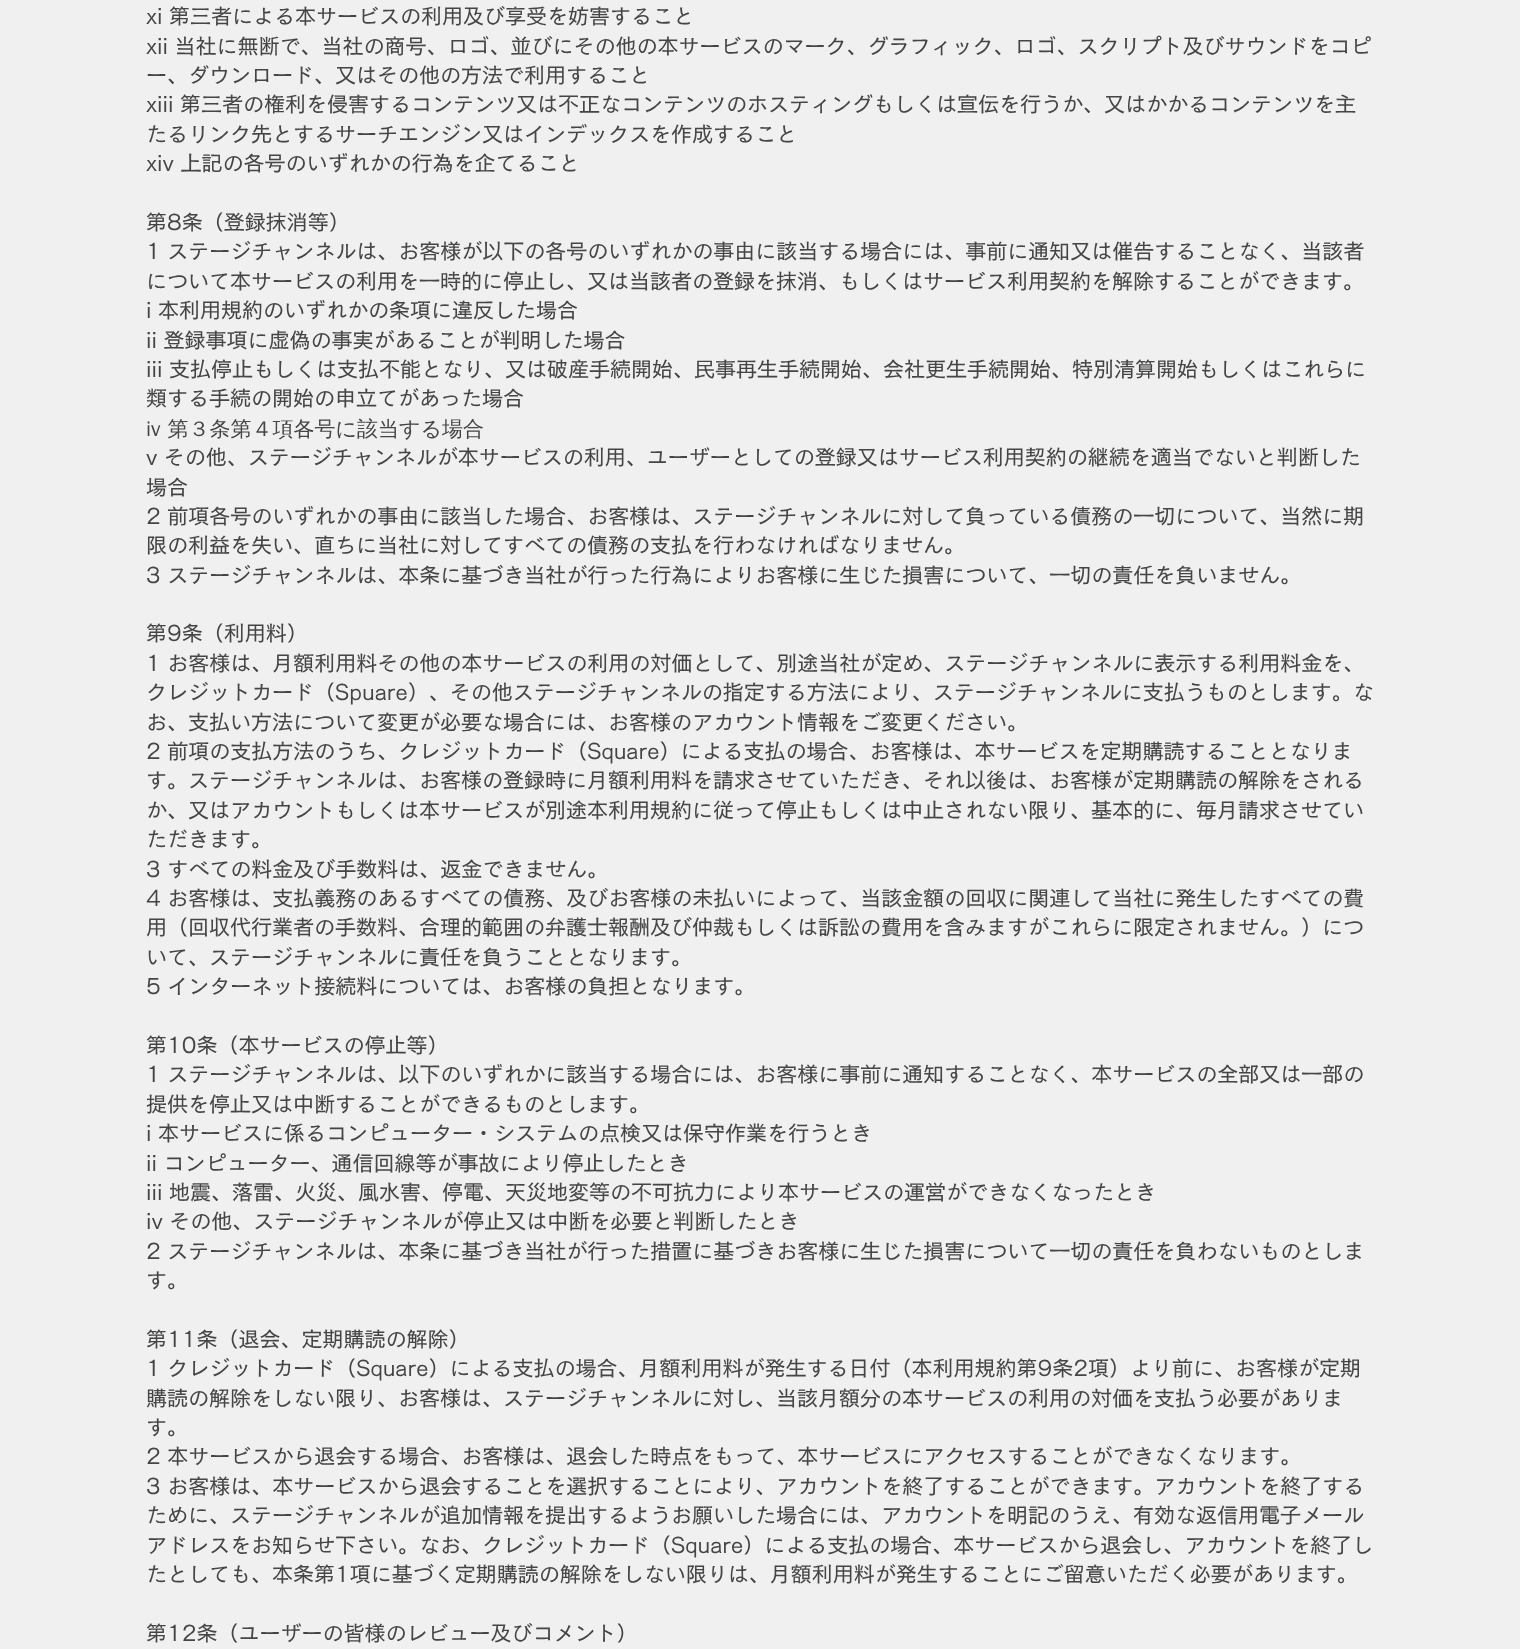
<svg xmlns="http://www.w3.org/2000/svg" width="1520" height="1649">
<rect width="100%" height="100%" fill="#f0f0f0"/>
<text x="146" y="24" style="font-family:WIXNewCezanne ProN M;font-size:21px;font-weight:500;fill:#454545">xi 第三者による本サービスの利用及び享受を妨害すること</text>
<text x="146" y="54" style="font-family:WIXNewCezanne ProN M;font-size:21px;font-weight:500;fill:#454545">xii 当社に無断で、当社の商号、ロゴ、並びにその他の本サービスのマーク、グラフィック、ロゴ、スクリプト及びサウンドをコピ</text>
<text x="146" y="83" style="font-family:WIXNewCezanne ProN M;font-size:21px;font-weight:500;fill:#454545">ー、ダウンロード、又はその他の方法で利用すること</text>
<text x="146" y="112" style="font-family:WIXNewCezanne ProN M;font-size:21px;font-weight:500;fill:#454545">xiii 第三者の権利を侵害するコンテンツ又は不正なコンテンツのホスティングもしくは宣伝を行うか、又はかかるコンテンツを主</text>
<text x="146" y="142" style="font-family:WIXNewCezanne ProN M;font-size:21px;font-weight:500;fill:#454545">たるリンク先とするサーチエンジン又はインデックスを作成すること</text>
<text x="146" y="171" style="font-family:WIXNewCezanne ProN M;font-size:21px;font-weight:500;fill:#454545">xiv 上記の各号のいずれかの行為を企てること</text>
<text x="146" y="230" style="font-family:WIXNewCezanne ProN M;font-size:21px;font-weight:500;fill:#454545">第8条（登録抹消等）</text>
<text x="146" y="259" style="font-family:WIXNewCezanne ProN M;font-size:21px;font-weight:500;fill:#454545">1 ステージチャンネルは、お客様が以下の各号のいずれかの事由に該当する場合には、事前に通知又は催告することなく、当該者</text>
<text x="146" y="289" style="font-family:WIXNewCezanne ProN M;font-size:21px;font-weight:500;fill:#454545">について本サービスの利用を一時的に停止し、又は当該者の登録を抹消、もしくはサービス利用契約を解除することができます。</text>
<text x="146" y="318" style="font-family:WIXNewCezanne ProN M;font-size:21px;font-weight:500;fill:#454545">i 本利用規約のいずれかの条項に違反した場合</text>
<text x="146" y="348" style="font-family:WIXNewCezanne ProN M;font-size:21px;font-weight:500;fill:#454545">ii 登録事項に虚偽の事実があることが判明した場合</text>
<text x="146" y="377" style="font-family:WIXNewCezanne ProN M;font-size:21px;font-weight:500;fill:#454545">iii 支払停止もしくは支払不能となり、又は破産手続開始、民事再生手続開始、会社更生手続開始、特別清算開始もしくはこれらに</text>
<text x="146" y="406" style="font-family:WIXNewCezanne ProN M;font-size:21px;font-weight:500;fill:#454545">類する手続の開始の申立てがあった場合</text>
<text x="146" y="436" word-spacing="1" style="font-family:WenQuanYi Zen Hei;font-size:21px;font-weight:500;fill:#454545">iv 第３条第４項各号に該当する場合</text>
<text x="146" y="465" style="font-family:WIXNewCezanne ProN M;font-size:21px;font-weight:500;fill:#454545">v その他、ステージチャンネルが本サービスの利用、ユーザーとしての登録又はサービス利用契約の継続を適当でないと判断した</text>
<text x="146" y="495" style="font-family:WIXNewCezanne ProN M;font-size:21px;font-weight:500;fill:#454545">場合</text>
<text x="146" y="524" style="font-family:WIXNewCezanne ProN M;font-size:21px;font-weight:500;fill:#454545">2 前項各号のいずれかの事由に該当した場合、お客様は、ステージチャンネルに対して負っている債務の一切について、当然に期</text>
<text x="146" y="553" style="font-family:WIXNewCezanne ProN M;font-size:21px;font-weight:500;fill:#454545">限の利益を失い、直ちに当社に対してすべての債務の支払を行わなければなりません。</text>
<text x="146" y="583" style="font-family:WIXNewCezanne ProN M;font-size:21px;font-weight:500;fill:#454545">3 ステージチャンネルは、本条に基づき当社が行った行為によりお客様に生じた損害について、一切の責任を負いません。</text>
<text x="146" y="641" style="font-family:WIXNewCezanne ProN M;font-size:21px;font-weight:500;fill:#454545">第9条（利用料）</text>
<text x="146" y="671" style="font-family:WIXNewCezanne ProN M;font-size:21px;font-weight:500;fill:#454545">1 お客様は、月額利用料その他の本サービスの利用の対価として、別途当社が定め、ステージチャンネルに表示する利用料金を、</text>
<text x="146" y="700" style="font-family:WIXNewCezanne ProN M;font-size:21px;font-weight:500;fill:#454545">クレジットカード（Spuare）、その他ステージチャンネルの指定する方法により、ステージチャンネルに支払うものとします。な</text>
<text x="146" y="730" style="font-family:WIXNewCezanne ProN M;font-size:21px;font-weight:500;fill:#454545">お、支払い方法について変更が必要な場合には、お客様のアカウント情報をご変更ください。</text>
<text x="146" y="759" style="font-family:WIXNewCezanne ProN M;font-size:21px;font-weight:500;fill:#454545">2 前項の支払方法のうち、クレジットカード（Square）による支払の場合、お客様は、本サービスを定期購読することとなりま</text>
<text x="146" y="788" style="font-family:WIXNewCezanne ProN M;font-size:21px;font-weight:500;fill:#454545">す。ステージチャンネルは、お客様の登録時に月額利用料を請求させていただき、それ以後は、お客様が定期購読の解除をされる</text>
<text x="146" y="818" style="font-family:WIXNewCezanne ProN M;font-size:21px;font-weight:500;fill:#454545">か、又はアカウントもしくは本サービスが別途本利用規約に従って停止もしくは中止されない限り、基本的に、毎月請求させてい</text>
<text x="146" y="847" style="font-family:WIXNewCezanne ProN M;font-size:21px;font-weight:500;fill:#454545">ただきます。</text>
<text x="146" y="877" style="font-family:WIXNewCezanne ProN M;font-size:21px;font-weight:500;fill:#454545">3 すべての料金及び手数料は、返金できません。</text>
<text x="146" y="906" style="font-family:WIXNewCezanne ProN M;font-size:21px;font-weight:500;fill:#454545">4 お客様は、支払義務のあるすべての債務、及びお客様の未払いによって、当該金額の回収に関連して当社に発生したすべての費</text>
<text x="146" y="935" style="font-family:WIXNewCezanne ProN M;font-size:21px;font-weight:500;fill:#454545">用（回収代行業者の手数料、合理的範囲の弁護士報酬及び仲裁もしくは訴訟の費用を含みますがこれらに限定されません。）につ</text>
<text x="146" y="965" style="font-family:WIXNewCezanne ProN M;font-size:21px;font-weight:500;fill:#454545">いて、ステージチャンネルに責任を負うこととなります。</text>
<text x="146" y="994" style="font-family:WIXNewCezanne ProN M;font-size:21px;font-weight:500;fill:#454545">5 インターネット接続料については、お客様の負担となります。</text>
<text x="146" y="1053" style="font-family:WIXNewCezanne ProN M;font-size:21px;font-weight:500;fill:#454545">第10条（本サービスの停止等）</text>
<text x="146" y="1082" style="font-family:WIXNewCezanne ProN M;font-size:21px;font-weight:500;fill:#454545">1 ステージチャンネルは、以下のいずれかに該当する場合には、お客様に事前に通知することなく、本サービスの全部又は一部の</text>
<text x="146" y="1112" style="font-family:WIXNewCezanne ProN M;font-size:21px;font-weight:500;fill:#454545">提供を停止又は中断することができるものとします。</text>
<text x="146" y="1141" style="font-family:WIXNewCezanne ProN M;font-size:21px;font-weight:500;fill:#454545">i 本サービスに係るコンピューター・システムの点検又は保守作業を行うとき</text>
<text x="146" y="1171" style="font-family:WIXNewCezanne ProN M;font-size:21px;font-weight:500;fill:#454545">ii コンピューター、通信回線等が事故により停止したとき</text>
<text x="146" y="1200" style="font-family:WIXNewCezanne ProN M;font-size:21px;font-weight:500;fill:#454545">iii 地震、落雷、火災、風水害、停電、天災地変等の不可抗力により本サービスの運営ができなくなったとき</text>
<text x="146" y="1229" style="font-family:WIXNewCezanne ProN M;font-size:21px;font-weight:500;fill:#454545">iv その他、ステージチャンネルが停止又は中断を必要と判断したとき</text>
<text x="146" y="1259" style="font-family:WIXNewCezanne ProN M;font-size:21px;font-weight:500;fill:#454545">2 ステージチャンネルは、本条に基づき当社が行った措置に基づきお客様に生じた損害について一切の責任を負わないものとしま</text>
<text x="146" y="1288" style="font-family:WIXNewCezanne ProN M;font-size:21px;font-weight:500;fill:#454545">す。</text>
<text x="146" y="1347" style="font-family:WIXNewCezanne ProN M;font-size:21px;font-weight:500;fill:#454545">第11条（退会、定期購読の解除）</text>
<text x="146" y="1376" style="font-family:WIXNewCezanne ProN M;font-size:21px;font-weight:500;fill:#454545">1 クレジットカード（Square）による支払の場合、月額利用料が発生する日付（本利用規約第9条2項）より前に、お客様が定期</text>
<text x="146" y="1406" style="font-family:WIXNewCezanne ProN M;font-size:21px;font-weight:500;fill:#454545">購読の解除をしない限り、お客様は、ステージチャンネルに対し、当該月額分の本サービスの利用の対価を支払う必要がありま</text>
<text x="146" y="1435" style="font-family:WIXNewCezanne ProN M;font-size:21px;font-weight:500;fill:#454545">す。</text>
<text x="146" y="1464" style="font-family:WIXNewCezanne ProN M;font-size:21px;font-weight:500;fill:#454545">2 本サービスから退会する場合、お客様は、退会した時点をもって、本サービスにアクセスすることができなくなります。</text>
<text x="146" y="1494" style="font-family:WIXNewCezanne ProN M;font-size:21px;font-weight:500;fill:#454545">3 お客様は、本サービスから退会することを選択することにより、アカウントを終了することができます。アカウントを終了する</text>
<text x="146" y="1523" style="font-family:WIXNewCezanne ProN M;font-size:21px;font-weight:500;fill:#454545">ために、ステージチャンネルが追加情報を提出するようお願いした場合には、アカウントを明記のうえ、有効な返信用電子メール</text>
<text x="146" y="1553" style="font-family:WIXNewCezanne ProN M;font-size:21px;font-weight:500;fill:#454545">アドレスをお知らせ下さい。なお、クレジットカード（Square）による支払の場合、本サービスから退会し、アカウントを終了し</text>
<text x="146" y="1582" style="font-family:WIXNewCezanne ProN M;font-size:21px;font-weight:500;fill:#454545">たとしても、本条第1項に基づく定期購読の解除をしない限りは、月額利用料が発生することにご留意いただく必要があります。</text>
<text x="146" y="1641" style="font-family:WIXNewCezanne ProN M;font-size:21px;font-weight:500;fill:#454545">第12条（ユーザーの皆様のレビュー及びコメント）</text>
</svg>
